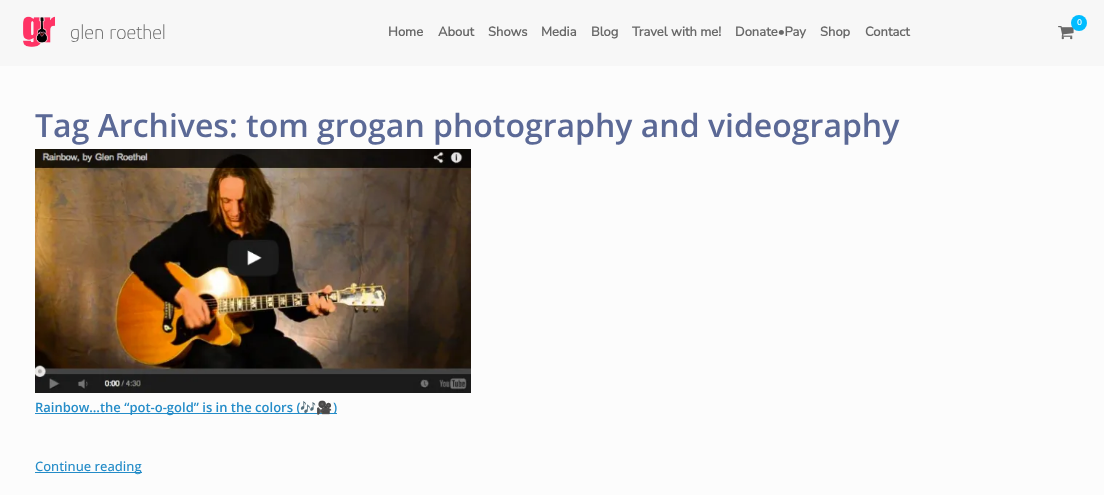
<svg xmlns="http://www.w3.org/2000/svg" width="1104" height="495">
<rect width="100%" height="100%" fill="#fcfcfc"/>
<rect width="1104" height="66" fill="#f7f7f7"/>
<image x="23" y="16" width="32" height="31" href="media/1.png"/>
<text x="70" y="39" style="font-family:Glory;font-size:21px;font-weight:100;fill:#686868">glen roethel</text>
<image x="1058" y="26" width="16" height="14" href="media/2.png"/>
<circle cx="1079" cy="23" r="8" fill="#00bcff"/>
<text x="1077" y="25" style="font-family:Nunito Sans;font-size:8px;font-weight:bold;fill:#fff">0</text>
<text x="388" y="36" style="font-family:Nunito Sans;font-size:13px;font-weight:bold;fill:#686868">Home</text>
<text x="438" y="36" style="font-family:Nunito Sans;font-size:13px;font-weight:bold;fill:#686868">About</text>
<text x="488" y="36" style="font-family:Nunito Sans;font-size:13px;font-weight:bold;fill:#686868">Shows</text>
<text x="541" y="36" style="font-family:Nunito Sans;font-size:13px;font-weight:bold;fill:#686868">Media</text>
<text x="591" y="36" style="font-family:Nunito Sans;font-size:13px;font-weight:bold;fill:#686868">Blog</text>
<text x="632" y="36" style="font-family:Nunito Sans;font-size:13px;font-weight:bold;fill:#686868">Travel with me!</text>
<text x="735" y="36" style="font-family:Nunito Sans;font-size:13px;font-weight:bold;fill:#686868">Donate•Pay</text>
<text x="820" y="36" style="font-family:Nunito Sans;font-size:13px;font-weight:bold;fill:#686868">Shop</text>
<text x="865" y="36" style="font-family:Nunito Sans;font-size:13px;font-weight:bold;fill:#686868">Contact</text>
<text x="35" y="137" style="font-family:Open Sans;font-size:32px;font-weight:600;fill:#5b6996">Tag Archives: tom grogan photography and videography</text>
<image x="35" y="149" width="436" height="244" href="media/3.png"/>
<rect x="35" y="413" width="302" height="1" fill="#248cc8"/>
<text x="35" y="412" style="font-family:Open Sans;font-size:13px;font-weight:600;fill:#248cc8">Rainbow…the “pot-o-gold” is in the colors (</text>
<text x="300" y="412" style="font-family:Noto Color Emoji;font-size:13px;font-weight:bold;fill:#248cc8">🎶🎥</text>
<text x="333" y="412" style="font-family:Open Sans;font-size:13px;font-weight:600;fill:#248cc8">)</text>
<rect x="35" y="472" width="107" height="1" fill="#248cc8"/>
<text x="35" y="471" style="font-family:Open Sans;font-size:13px;font-weight:500;fill:#248cc8">Continue reading</text>
</svg>
